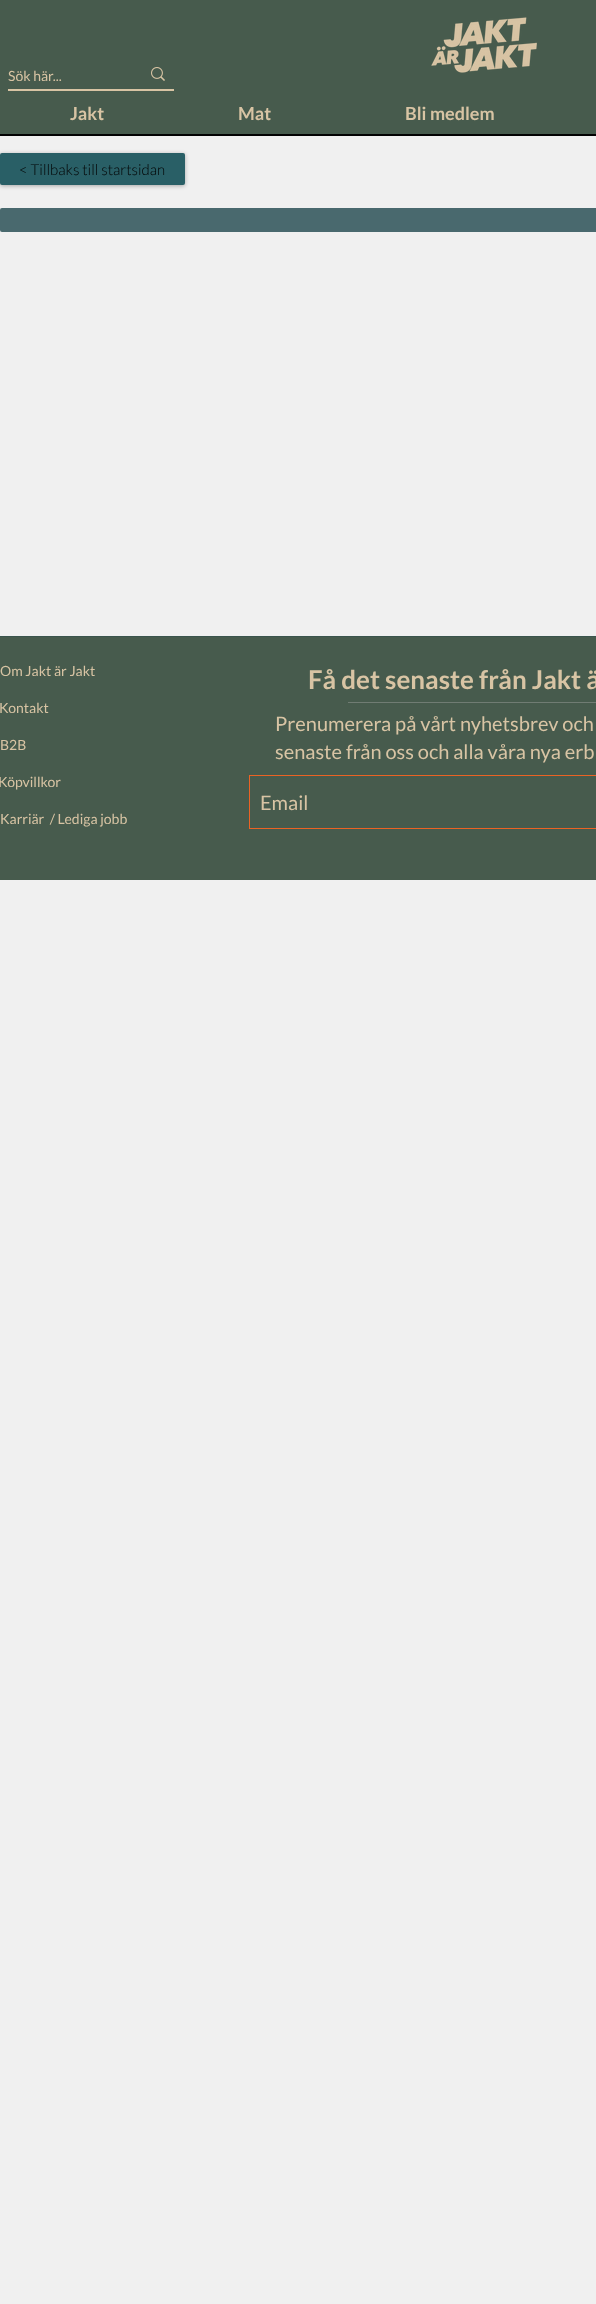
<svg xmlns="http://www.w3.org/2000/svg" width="596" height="2304">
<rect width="100%" height="100%" fill="#f0f0f0"/>
<rect width="596" height="134" fill="#475b4d"/>
<rect y="134" width="596" height="2" fill="#020202"/>
<image x="431" y="17" width="106" height="56" href="media/1.png"/>
<rect x="8" y="89" width="166" height="2" fill="#d8c4a4"/>
<text x="8" y="81" style="font-family:Lato;font-size:14px;fill:#d8c4a4">Sök här...</text>
<image x="151" y="67" width="14" height="14" href="media/2.png"/>
<text x="70" y="120" style="font-family:Lato;font-size:18px;font-weight:bold;fill:#d8c4a4">Jakt</text>
<text x="238" y="120" style="font-family:Lato;font-size:18px;font-weight:bold;fill:#d8c4a4">Mat</text>
<text x="405" y="120" style="font-family:Lato;font-size:18px;font-weight:bold;fill:#d8c4a4">Bli medlem</text>
<rect y="154" width="185" height="32" rx="2" fill="#0000004d" filter="blur(2px)"/>
<rect y="153" width="185" height="32" rx="2" fill="#295f66"/>
<text x="19" y="175" style="font-family:Lato;font-size:15px;font-weight:300;fill:#020202">&lt; Tillbaks till startsidan</text>
<rect y="208" width="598" height="24" rx="2" fill="#49696e"/>
<rect y="637" width="596" height="243" fill="#475b4d"/>
<rect y="636" width="596" height="1" fill="#3a544d"/>
<text x="0" y="676" style="font-family:Lato;font-size:14px;fill:#d8c4a4">Om Jakt är Jakt</text>
<text x="-1" y="713" style="font-family:Lato;font-size:14px;fill:#d8c4a4">Kontakt</text>
<text x="0" y="750" style="font-family:Lato;font-size:14px;fill:#d8c4a4">B2B</text>
<text x="-2" y="787" style="font-family:Lato;font-size:14px;fill:#d8c4a4">Köpvillkor</text>
<text x="0" y="824" style="font-family:Lato;font-size:14px;fill:#d8c4a4" xml:space="preserve">Karriär  / Lediga jobb</text>
<text x="308" y="689" style="font-family:Lato;font-size:26px;font-weight:bold;fill:#d8c4a4">Få det senaste från Jakt ä</text>
<rect x="348" y="702" width="248" height="1" fill="#707c73"/>
<text x="275" y="731" style="font-family:Lato;font-size:20px;fill:#d8c4a4">Prenumerera på vårt nyhetsbrev och</text>
<text x="275" y="759" style="font-family:Lato;font-size:20px;fill:#d8c4a4">senaste från oss och alla våra nya erb</text>
<rect x="249.5" y="775.5" width="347" height="53" fill="none" stroke="#eb6324"/>
<text x="260" y="810" style="font-family:Lato;font-size:20px;fill:#d8c4a4">Email</text>
</svg>
